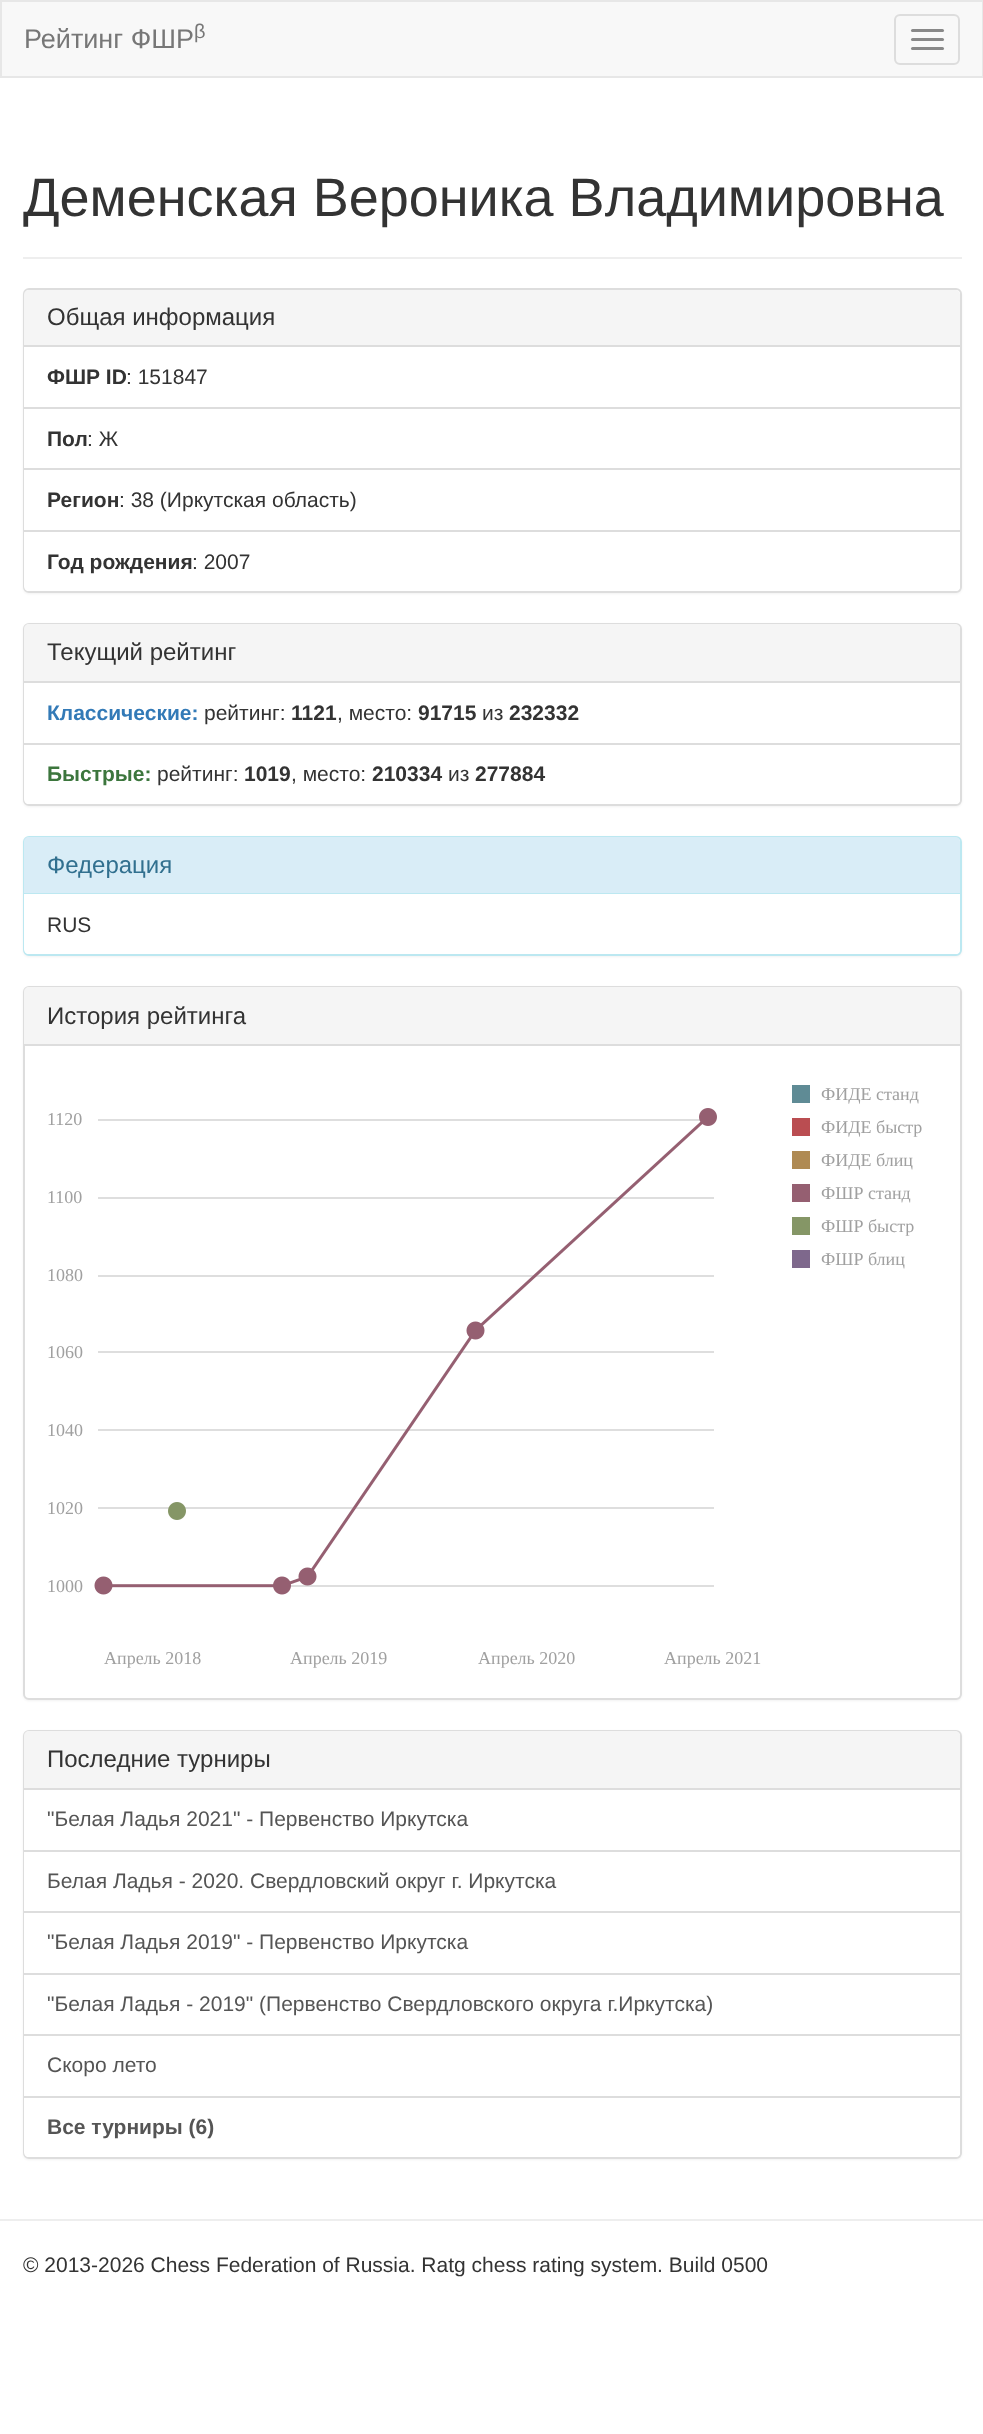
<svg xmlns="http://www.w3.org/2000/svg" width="983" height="2434">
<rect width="100%" height="100%" fill="#fff"/>
<rect x="1" y="1" width="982" height="76" fill="#f8f8f8" stroke="#e7e7e7" stroke-width="2"/>
<text x="24" y="48" style="font-family:Liberation Sans;font-size:27px;fill:#777">Рейтинг ФШР</text>
<text x="194" y="38" style="font-family:Liberation Sans;font-size:20px;fill:#777">β</text>
<rect x="895" y="15" width="64" height="49" rx="5" fill="none" stroke="#ddd" stroke-width="2"/>
<rect x="911" y="29" width="33" height="3" rx="1.5" fill="#888"/>
<rect x="911" y="38" width="33" height="3" rx="1.5" fill="#888"/>
<rect x="911" y="47" width="33" height="3" rx="1.5" fill="#888"/>
<rect x="23" y="257" width="939" height="2" fill="#eee"/>
<text x="23" y="216" style="font-family:Liberation Sans;font-size:54px;fill:#333">Деменская Вероника Владимировна</text>
<rect x="23" y="290" width="939" height="304" rx="6" fill="#0000000d" filter="blur(1px)"/>
<rect x="24" y="289" width="937" height="303" rx="5" fill="#fff" stroke="#ddd" stroke-width="2"/>
<path d="M29 290h926c3 0 5 2 5 5v52h-936v-52c0-3 2-5 5-5z" fill="#f5f5f5"/>
<rect x="24" y="345" width="936" height="2" fill="#ddd"/>
<text x="47" y="325" style="font-family:Liberation Sans;font-size:24px;fill:#333">Общая информация</text>
<rect x="24" y="347" width="1" height="60" fill="#fff"/>
<text x="47" y="384" style="font-family:Liberation Sans;font-size:21px;font-weight:bold;fill:#333">ФШР ID</text>
<text x="126" y="384" style="font-family:Liberation Sans;font-size:21px;fill:#333">: 151847</text>
<rect x="24" y="409" width="1" height="59" fill="#fff"/>
<rect x="24" y="407" width="936" height="2" fill="#ddd"/>
<rect x="24" y="468" width="936" height="2" fill="#ddd"/>
<text x="47" y="446" style="font-family:Liberation Sans;font-size:21px;font-weight:bold;fill:#333">Пол</text>
<text x="87" y="446" style="font-family:Liberation Sans;font-size:21px;fill:#333">: Ж</text>
<rect x="24" y="470" width="1" height="60" fill="#fff"/>
<text x="47" y="507" style="font-family:Liberation Sans;font-size:21px;font-weight:bold;fill:#333">Регион</text>
<text x="119" y="507" style="font-family:Liberation Sans;font-size:21px;fill:#333">: 38 (Иркутская область)</text>
<path d="M24 530h936v56c0 3-2 5-5 5h-926c-3 0-5-2-5-5z" fill="#fff"/>
<rect x="24" y="530" width="936" height="2" fill="#ddd"/>
<text x="47" y="569" style="font-family:Liberation Sans;font-size:21px;font-weight:bold;fill:#333">Год рождения</text>
<text x="192" y="569" style="font-family:Liberation Sans;font-size:21px;fill:#333">: 2007</text>
<rect x="23" y="624" width="939" height="183" rx="6" fill="#0000000d" filter="blur(1px)"/>
<rect x="24" y="624" width="937" height="181" rx="5" fill="#fff" stroke="#ddd" stroke-width="2"/>
<path d="M29 624h926c3 0 5 2 5 5v54h-936v-54c0-3 2-5 5-5z" fill="#f5f5f5"/>
<rect x="24" y="681" width="936" height="2" fill="#ddd"/>
<text x="47" y="660" style="font-family:Liberation Sans;font-size:24px;fill:#333">Текущий рейтинг</text>
<rect x="24" y="683" width="1" height="60" fill="#fff"/>
<text x="47" y="720" style="font-family:Liberation Sans;font-size:21px;font-weight:bold;fill:#337ab7">Классические:</text>
<text x="204" y="720" style="font-family:Liberation Sans;font-size:21px;fill:#333">рейтинг:</text>
<text x="291" y="720" style="font-family:Liberation Sans;font-size:21px;font-weight:bold;fill:#333">1121</text>
<text x="337" y="720" style="font-family:Liberation Sans;font-size:21px;fill:#333">, место:</text>
<text x="418" y="720" style="font-family:Liberation Sans;font-size:21px;font-weight:bold;fill:#333">91715</text>
<text x="482" y="720" style="font-family:Liberation Sans;font-size:21px;fill:#333">из</text>
<text x="509" y="720" style="font-family:Liberation Sans;font-size:21px;font-weight:bold;fill:#333">232332</text>
<path d="M24 743h936v56c0 3-2 5-5 5h-926c-3 0-5-2-5-5z" fill="#fff"/>
<rect x="24" y="743" width="936" height="2" fill="#ddd"/>
<text x="47" y="781" style="font-family:Liberation Sans;font-size:21px;font-weight:bold;fill:#3c763d">Быстрые:</text>
<text x="157" y="781" style="font-family:Liberation Sans;font-size:21px;fill:#333">рейтинг:</text>
<text x="244" y="781" style="font-family:Liberation Sans;font-size:21px;font-weight:bold;fill:#333">1019</text>
<text x="291" y="781" style="font-family:Liberation Sans;font-size:21px;fill:#333">, место:</text>
<text x="372" y="781" style="font-family:Liberation Sans;font-size:21px;font-weight:bold;fill:#333">210334</text>
<text x="448" y="781" style="font-family:Liberation Sans;font-size:21px;fill:#333">из</text>
<text x="475" y="781" style="font-family:Liberation Sans;font-size:21px;font-weight:bold;fill:#333">277884</text>
<rect x="23" y="837" width="939" height="120" rx="6" fill="#0000000d" filter="blur(1px)"/>
<rect x="24" y="837" width="937" height="118" rx="5" fill="#fff" stroke="#bce8f1" stroke-width="2"/>
<path d="M29 837h926c3 0 5 2 5 5v52h-936v-52c0-3 2-5 5-5z" fill="#d9edf7"/>
<rect x="24" y="893" width="936" height="1" fill="#bce8f1"/>
<text x="47" y="873" style="font-family:Liberation Sans;font-size:24px;fill:#31708f">Федерация</text>
<path d="M24 894h936v55c0 3-2 5-5 5h-926c-3 0-5-2-5-5z" fill="#fff"/>
<text x="47" y="932" style="font-family:Liberation Sans;font-size:21px;fill:#333">RUS</text>
<rect x="23" y="987" width="939" height="714" rx="6" fill="#0000000d" filter="blur(1px)"/>
<rect x="24" y="987" width="937" height="712" rx="5" fill="#fff" stroke="#ddd" stroke-width="2"/>
<path d="M29 987h926c3 0 5 2 5 5v54h-936v-54c0-3 2-5 5-5z" fill="#f5f5f5"/>
<rect x="24" y="1044" width="936" height="2" fill="#ddd"/>
<text x="47" y="1024" style="font-family:Liberation Sans;font-size:24px;fill:#333">История рейтинга</text>
<image x="94" y="1085" width="716" height="510" href="media/1.png"/>
<text x="821" y="1100" style="font-family:Liberation Serif;font-size:18px;fill:#a0a0a0">ФИДЕ станд</text>
<text x="47" y="1125" style="font-family:Liberation Serif;font-size:18px;fill:#a0a0a0">1120</text>
<text x="821" y="1133" style="font-family:Liberation Serif;font-size:18px;fill:#a0a0a0">ФИДЕ быстр</text>
<text x="821" y="1166" style="font-family:Liberation Serif;font-size:18px;fill:#a0a0a0">ФИДЕ блиц</text>
<text x="47" y="1203" style="font-family:Liberation Serif;font-size:18px;fill:#a0a0a0">1100</text>
<text x="821" y="1199" style="font-family:Liberation Serif;font-size:18px;fill:#a0a0a0">ФШР станд</text>
<text x="821" y="1232" style="font-family:Liberation Serif;font-size:18px;fill:#a0a0a0">ФШР быстр</text>
<text x="821" y="1265" style="font-family:Liberation Serif;font-size:18px;fill:#a0a0a0">ФШР блиц</text>
<text x="47" y="1281" style="font-family:Liberation Serif;font-size:18px;fill:#a0a0a0">1080</text>
<text x="47" y="1358" style="font-family:Liberation Serif;font-size:18px;fill:#a0a0a0">1060</text>
<text x="47" y="1436" style="font-family:Liberation Serif;font-size:18px;fill:#a0a0a0">1040</text>
<text x="47" y="1514" style="font-family:Liberation Serif;font-size:18px;fill:#a0a0a0">1020</text>
<text x="47" y="1592" style="font-family:Liberation Serif;font-size:18px;fill:#a0a0a0">1000</text>
<text x="104" y="1664" style="font-family:Liberation Serif;font-size:18px;fill:#a0a0a0">Апрель 2018</text>
<text x="290" y="1664" style="font-family:Liberation Serif;font-size:18px;fill:#a0a0a0">Апрель 2019</text>
<text x="478" y="1664" style="font-family:Liberation Serif;font-size:18px;fill:#a0a0a0">Апрель 2020</text>
<text x="664" y="1664" style="font-family:Liberation Serif;font-size:18px;fill:#a0a0a0">Апрель 2021</text>
<rect x="23" y="1731" width="939" height="429" rx="6" fill="#0000000d" filter="blur(1px)"/>
<rect x="24" y="1731" width="937" height="427" rx="5" fill="#fff" stroke="#ddd" stroke-width="2"/>
<path d="M29 1731h926c3 0 5 2 5 5v54h-936v-54c0-3 2-5 5-5z" fill="#f5f5f5"/>
<rect x="24" y="1788" width="936" height="2" fill="#ddd"/>
<text x="47" y="1767" style="font-family:Liberation Sans;font-size:24px;fill:#333">Последние турниры</text>
<rect x="24" y="1790" width="1" height="60" fill="#fff"/>
<text x="47" y="1826" style="font-family:Liberation Sans;font-size:21px;fill:#555">"Белая Ладья 2021" - Первенство Иркутска</text>
<rect x="24" y="1852" width="1" height="59" fill="#fff"/>
<rect x="24" y="1850" width="936" height="2" fill="#ddd"/>
<rect x="24" y="1911" width="936" height="2" fill="#ddd"/>
<text x="47" y="1888" style="font-family:Liberation Sans;font-size:21px;fill:#555">Белая Ладья - 2020. Свердловский округ г. Иркутска</text>
<rect x="24" y="1913" width="1" height="60" fill="#fff"/>
<text x="47" y="1949" style="font-family:Liberation Sans;font-size:21px;fill:#555">"Белая Ладья 2019" - Первенство Иркутска</text>
<rect x="24" y="1975" width="1" height="59" fill="#fff"/>
<rect x="24" y="1973" width="936" height="2" fill="#ddd"/>
<rect x="24" y="2034" width="936" height="2" fill="#ddd"/>
<text x="47" y="2011" style="font-family:Liberation Sans;font-size:21px;fill:#555">"Белая Ладья - 2019" (Первенство Свердловского округа г.Иркутска)</text>
<rect x="24" y="2036" width="1" height="60" fill="#fff"/>
<text x="47" y="2072" style="font-family:Liberation Sans;font-size:21px;fill:#555">Скоро лето</text>
<path d="M24 2096h936v56c0 3-2 5-5 5h-926c-3 0-5-2-5-5z" fill="#fff"/>
<rect x="24" y="2096" width="936" height="2" fill="#ddd"/>
<text x="47" y="2134" style="font-family:Liberation Sans;font-size:21px;font-weight:bold;fill:#555">Все турниры (6)</text>
<rect y="2219" width="983" height="2" fill="#eee"/>
<text x="23" y="2272" style="font-family:Liberation Sans;font-size:21px;fill:#333">© 2013-2026 Chess Federation of Russia. Ratg chess rating system. Build 0500</text>
</svg>
